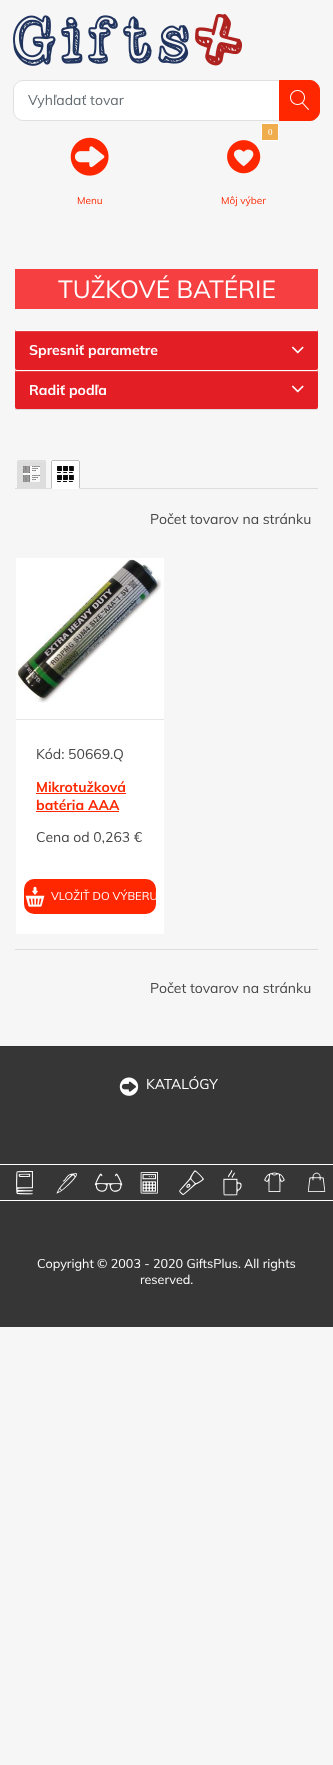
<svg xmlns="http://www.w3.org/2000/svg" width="333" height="1765">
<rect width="100%" height="100%" fill="#f6f6f6"/>
<image x="13" y="14" width="229" height="52" href="media/1.png"/>
<rect x="13" y="80" width="307" height="41" rx="10" fill="#fff"/>
<rect x="13.5" y="80.5" width="306" height="40" rx="9.5" fill="none" stroke="#0000001f"/>
<text x="28" y="105" style="font-family:Muli;font-size:14px;fill:#636c72">Vyhľadať tovar</text>
<path d="M279.5 80.5h30.5c5 0 9.5 4.5 9.5 9.5v21c0 5-4.5 9.5-9.5 9.5h-30.5z" fill="#ff2700" stroke="#ff2700"/>
<image x="290" y="90" width="19" height="20" href="media/2.png"/>
<image x="70" y="137" width="39" height="39" href="media/3.png"/>
<text x="77" y="204" style="font-family:Muli;font-size:10px;fill:#fc2800">Menu</text>
<rect x="261.5" y="123.5" width="17" height="17" fill="#f0ad4e" stroke="#fff"/>
<text x="268" y="135" style="font-family:Liberation Serif;font-size:9px;fill:#fff">0</text>
<image x="227" y="140" width="34" height="34" href="media/4.png"/>
<text x="221" y="204" style="font-family:Muli;font-size:10px;fill:#fc2800">Môj výber</text>
<rect x="15" y="269" width="303" height="40" fill="#f63f41"/>
<text x="58" y="298" style="font-family:Muli;font-size:24.5px;fill:#fff">TUŽKOVÉ BATÉRIE</text>
<rect x="15" y="330" width="303" height="40" rx="2" fill="#e31e25"/>
<path d="M17 332h299c1 0 2 0 2 1c0-2 0-2-2-2h-299c-2 0-2 0-2 2c0-1 1-1 2-1z" fill="#ffffff26"/>
<rect x="16" y="330" width="301" height="1" fill="#fff"/>
<text x="29" y="355" style="font-family:Muli;font-size:14px;font-weight:bold;fill:#fff">Spresniť parametre</text>
<image x="291" y="346" width="13" height="8" href="media/5.png"/>
<rect x="15" y="370" width="303" height="39" rx="2" fill="#e31e25"/>
<path d="M17 372h299c1 0 2 0 2 1c0-2 0-2-2-2h-299c-2 0-2 0-2 2c0-1 1-1 2-1z" fill="#ffffff26"/>
<rect x="16" y="370" width="301" height="1" fill="#fff"/>
<text x="29" y="395" style="font-family:Muli;font-size:14px;font-weight:bold;fill:#fff">Radiť podľa</text>
<image x="291" y="385" width="13" height="8" href="media/5.png"/>
<rect x="15" y="409" width="303" height="1" fill="#dddbdc"/>
<rect x="15" y="488" width="303" height="1" fill="#ddd"/>
<rect x="17" y="460" width="29" height="29" rx="2" fill="#ddd"/>
<path d="M19 462h26v-1c-1-.5-8 0-9 0h-13c-2.5 0-5-1-5 1.5z" fill="#e2e2e2"/>
<rect x="18" y="460" width="27" height="1" fill="#ddd"/>
<rect x="45" y="461" width="1" height="27" fill="#ddd"/>
<rect x="17" y="461" width="1" height="27" fill="#ddd"/>
<image x="23" y="466" width="17" height="16" href="media/6.png"/>
<rect x="51" y="460" width="29" height="29" rx="2" fill="#fff"/>
<rect x="52" y="460" width="27" height="1" fill="#bebebe"/>
<rect x="79" y="461" width="1" height="27" fill="#bebebe"/>
<rect x="51" y="461" width="1" height="27" fill="#bebebe"/>
<image x="57" y="466" width="17" height="16" href="media/7.png"/>
<text x="150" y="524" style="font-family:Muli;font-size:14px;fill:#464646">Počet tovarov na stránku</text>
<rect x="16" y="558" width="148" height="376" fill="#fff"/>
<image x="16" y="558" width="146" height="145" href="media/8.png"/>
<rect x="16" y="719" width="148" height="1" fill="#e6e6e6"/>
<text x="36" y="759" style="font-family:Muli;font-size:14px;fill:#464646">Kód: 50669.Q</text>
<text x="36" y="792" style="font-family:Muli;font-size:14px;font-weight:bold;fill:#fc2800">Mikrotužková</text>
<rect x="36" y="793" width="90" height="1" fill="#ff2700"/>
<text x="36" y="810" style="font-family:Muli;font-size:14px;font-weight:bold;fill:#fc2800">batéria AAA</text>
<rect x="36" y="811" width="83" height="1" fill="#ff2700"/>
<text x="36" y="842" style="font-family:Muli;font-size:14px;fill:#464646">Cena od 0,263 €</text>
<rect x="24" y="879" width="132" height="35" rx="10" fill="#ff2700"/>
<image x="25" y="886" width="20" height="21" href="media/9.png"/>
<text x="51" y="900" style="font-family:Muli;font-size:11.25px;fill:#fff">VLOŽIŤ DO VÝBERU</text>
<rect x="15" y="949" width="303" height="1" fill="#ddd"/>
<text x="150" y="993" style="font-family:Muli;font-size:14px;fill:#464646">Počet tovarov na stránku</text>
<rect y="1047" width="333" height="280" fill="#363636"/>
<rect y="1046" width="333" height="1" fill="#313131"/>
<image x="119" y="1077" width="20" height="19" href="media/10.png"/>
<text x="146" y="1089" style="font-family:Muli;font-size:14px;fill:#fff">KATALÓGY</text>
<rect y="1164" width="333" height="1" fill="#fff"/>
<rect y="1200" width="333" height="1" fill="#fff"/>
<image x="16" y="1171" width="17" height="24" href="media/11.png"/>
<image x="56" y="1173" width="21" height="21" href="media/12.png"/>
<image x="94" y="1173" width="29" height="19" href="media/13.png"/>
<image x="140" y="1172" width="18" height="22" href="media/14.png"/>
<image x="179" y="1170" width="25" height="25" href="media/15.png"/>
<image x="223" y="1170" width="19" height="26" href="media/16.png"/>
<image x="264" y="1172" width="21" height="20" href="media/17.png"/>
<image x="307" y="1172" width="19" height="20" href="media/18.png"/>
<text x="37" y="1268" style="font-family:Muli;font-size:12.6px;fill:#fff">Copyright © 2003 - 2020 GiftsPlus. All rights</text>
<text x="140" y="1284" style="font-family:Muli;font-size:12.6px;fill:#fff">reserved.</text>
</svg>
